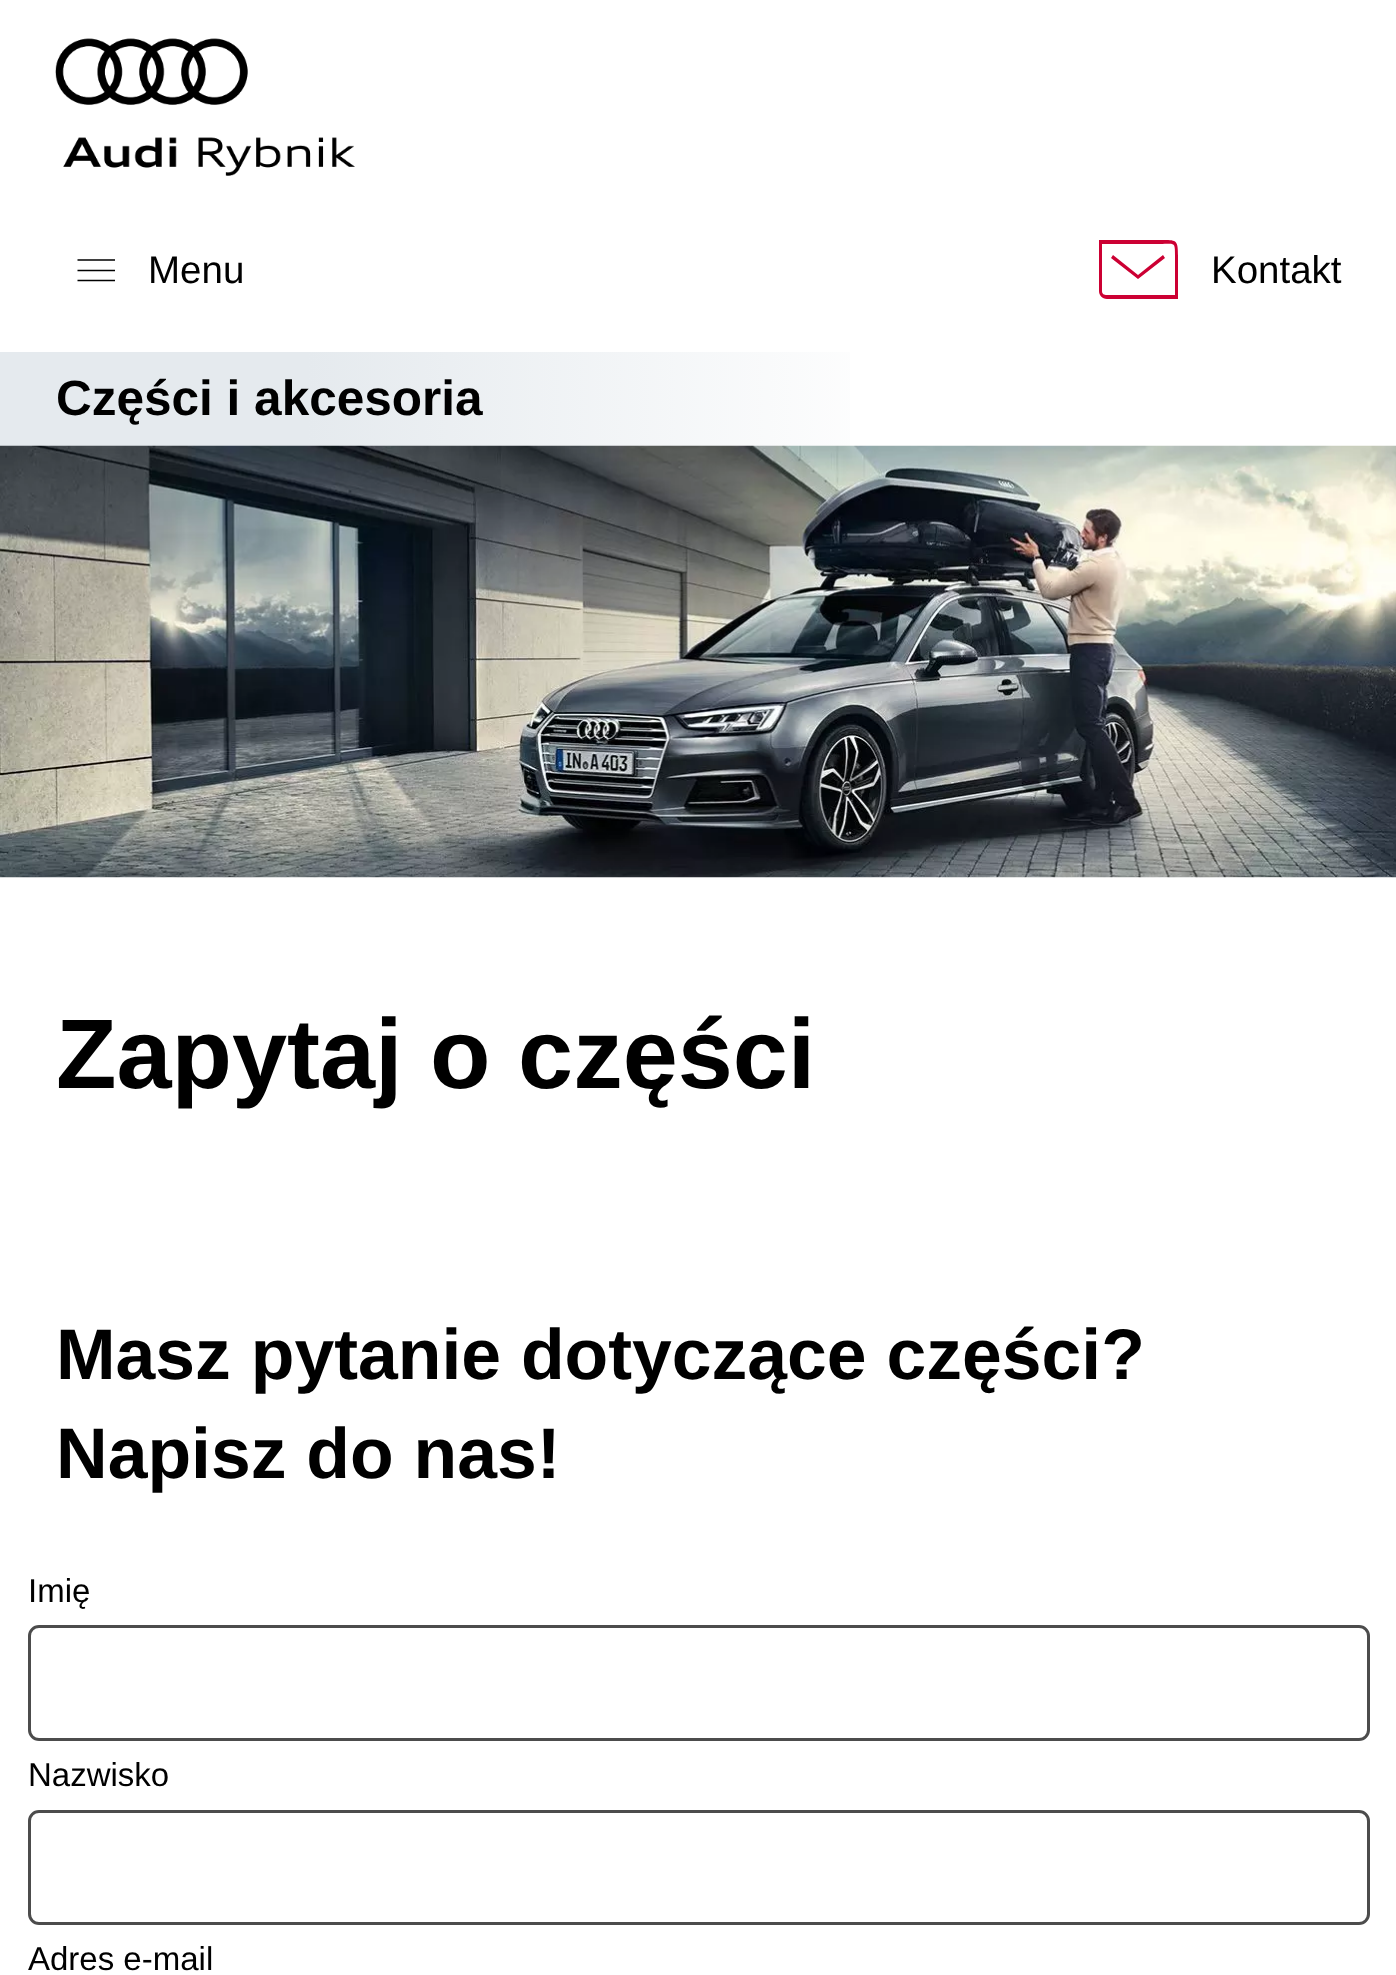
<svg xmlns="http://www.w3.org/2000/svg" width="1396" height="1975">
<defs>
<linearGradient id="g1" gradientUnits="userSpaceOnUse" x1="0" y1="399" x2="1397" y2="399"><stop offset="0" stop-color="#e5eaee"/><stop offset="0.22" stop-color="#e5eaee"/><stop offset="0.65" stop-color="#fff"/><stop offset="1" stop-color="#fff"/></linearGradient>
</defs>
<rect width="100%" height="100%" fill="#fff"/>
<image x="55" y="38" width="300" height="138" href="media/1.png"/>
<text x="148" y="283" style="font-family:Liberation Sans;font-size:38.5px;fill:#000">Menu</text>
<path d="M77.5 280.5h37.5m-37.5-10h37.5m-37.5-10.5h37.5" fill="none" stroke="#000" stroke-width="1.7"/>
<path d="M1178 299h-71c-5 0-8-4-8-8v-51h60c18 0 19-1 19 17zm-76-55v47c0 3 2 4 5 4h68v-39c0-15 0-12-16-12zm36 35l-27-21l2-3l25 20l25-20l2 3z" fill="#c03"/>
<text x="1211" y="283" style="font-family:Liberation Sans;font-size:38.5px;fill:#000">Kontakt</text>
<rect y="352" width="850" height="94" fill="url(#g1)"/>
<text x="56" y="415" style="font-family:Liberation Sans;font-size:49.5px;font-weight:bold;fill:#000">Części i akcesoria</text>
<image x="0" y="445" width="1396" height="433" href="media/2.png"/>
<text x="56" y="1088" style="font-family:Liberation Sans;font-size:99px;font-weight:bold;fill:#000">Zapytaj o części</text>
<text x="56" y="1379" style="font-family:Liberation Sans;font-size:71.5px;font-weight:bold;fill:#000">Masz pytanie dotyczące części?</text>
<text x="56" y="1478" style="font-family:Liberation Sans;font-size:71.5px;font-weight:bold;fill:#000">Napisz do nas!</text>
<text x="28" y="1602" style="font-family:Liberation Sans;font-size:33px;fill:#000">Imię</text>
<rect x="29.5" y="1626.5" width="1339" height="113" rx="9.5" fill="none" stroke="#4c4c4c" stroke-width="3"/>
<text x="28" y="1786" style="font-family:Liberation Sans;font-size:33px;fill:#000">Nazwisko</text>
<rect x="29.5" y="1811.5" width="1339" height="112" rx="9.5" fill="none" stroke="#4c4c4c" stroke-width="3"/>
<text x="28" y="1970" style="font-family:Liberation Sans;font-size:33px;fill:#000">Adres e-mail</text>
</svg>
